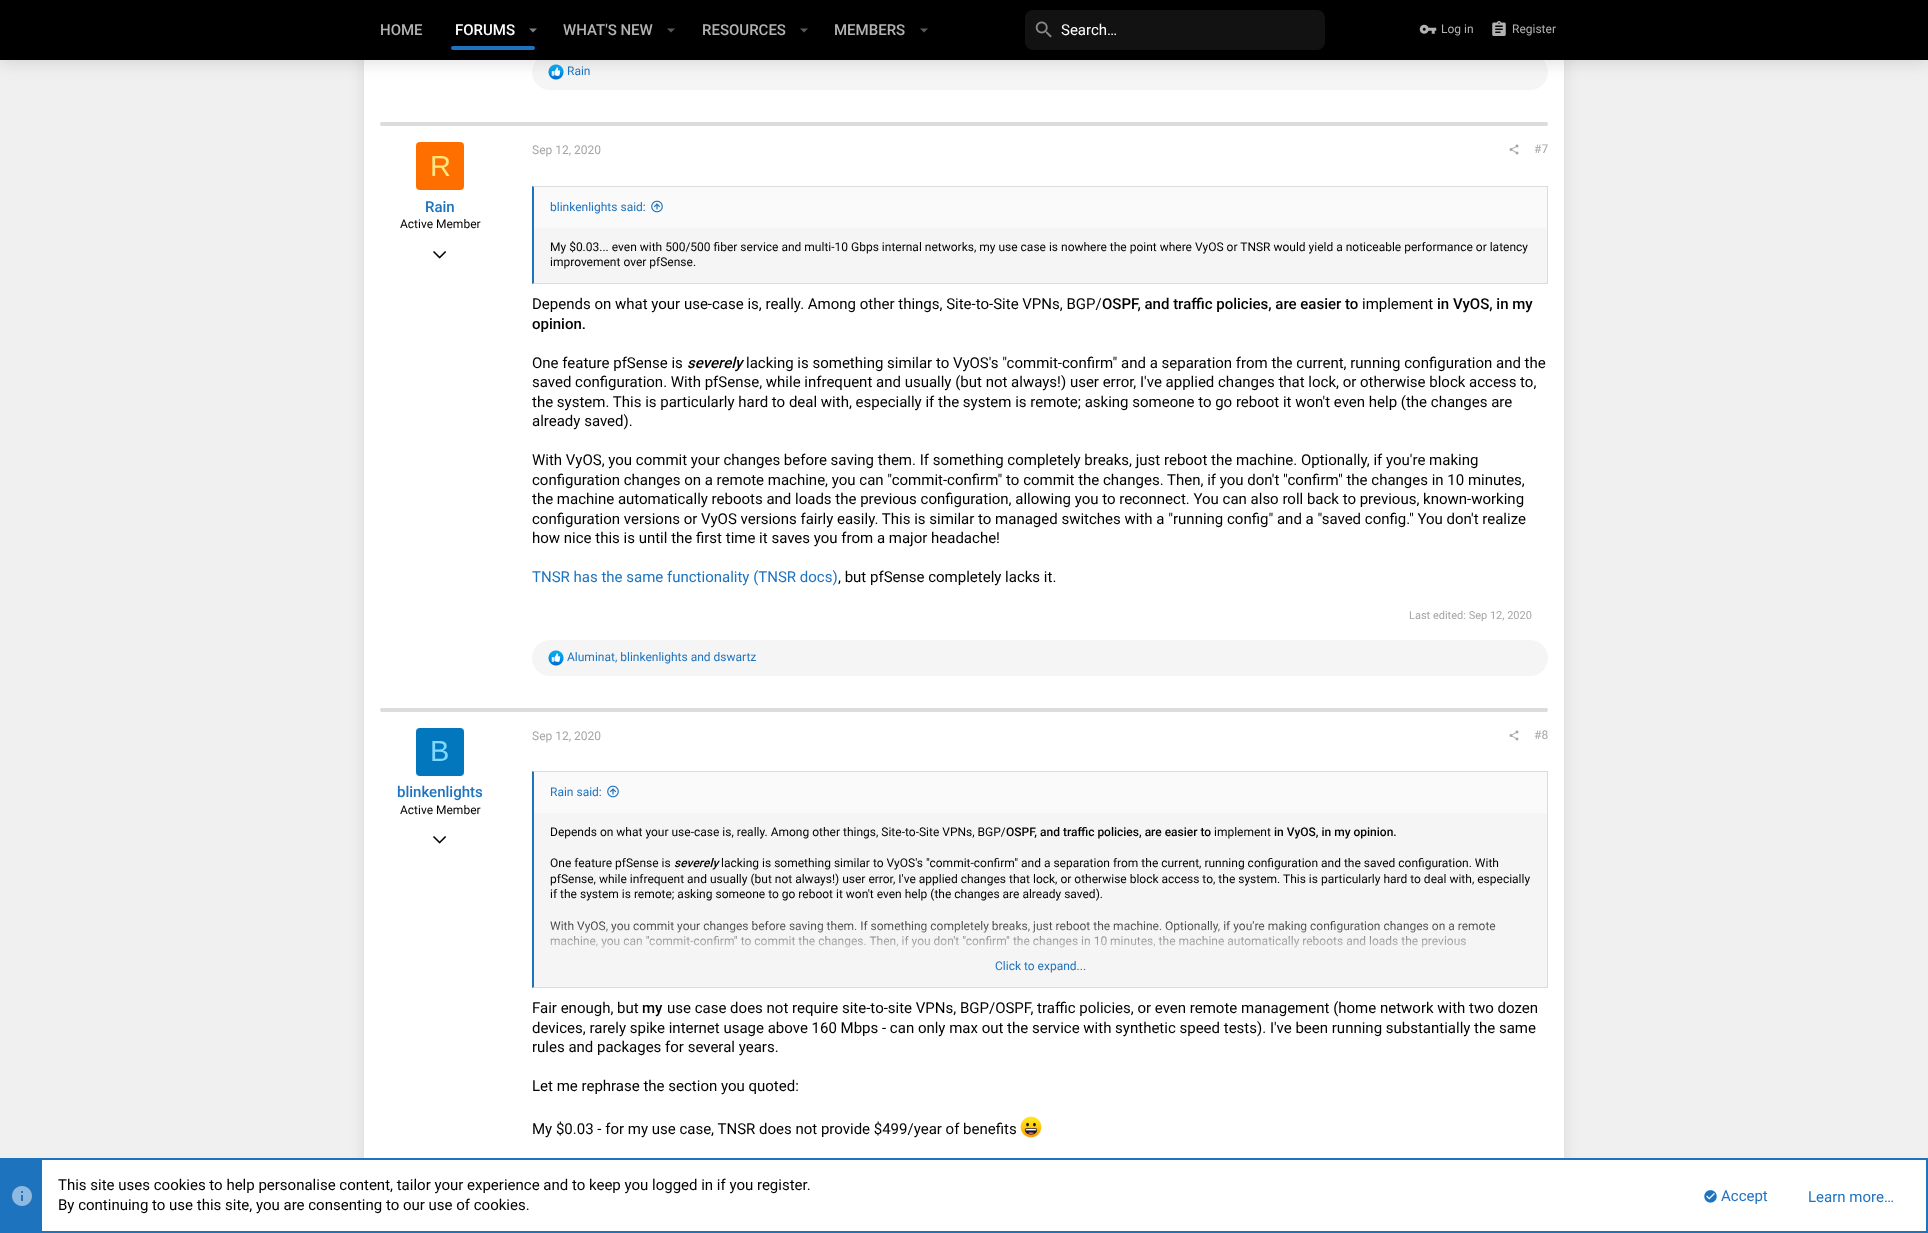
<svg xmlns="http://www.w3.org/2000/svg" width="1928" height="1233">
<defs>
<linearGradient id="g1" gradientUnits="userSpaceOnUse" x1="1041" y1="912" x2="1041" y2="987"><stop offset="0" stop-color="#f5f5f5" stop-opacity="0"/><stop offset="0.6" stop-color="#f5f5f5"/></linearGradient>
</defs>
<rect width="100%" height="100%" fill="#f0f0f0"/>
<rect x="364" y="-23" width="1200" height="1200" fill="#71717133" filter="blur(7.5px)"/>
<rect x="364" y="60" width="1200" height="652" fill="#fff"/>
<rect x="532" y="54" width="1016" height="36" rx="18" fill="#f5f5f5"/>
<image x="548" y="64" width="16" height="16" href="media/4.png"/>
<rect y="4" width="1928" height="60" fill="#71717133" filter="blur(7.5px)"/>
<rect width="1928" height="60" fill="#000"/>
<text x="380" y="35" style="font-family:Roboto;font-size:15px;font-weight:500;fill:#b3b3b3">HOME</text>
<text x="455" y="35" style="font-family:Roboto;font-size:15px;font-weight:500;fill:#fff">FORUMS</text>
<path d="M529 28.5l4 4l4-4z" fill="#808080"/>
<rect x="451" y="46" width="84" height="4" rx="2" fill="#1e73be"/>
<text x="563" y="35" style="font-family:Roboto;font-size:15px;font-weight:500;fill:#b3b3b3">WHAT'S NEW</text>
<path d="M667 28.5l4 4l4-4z" fill="#5a5a5a"/>
<text x="702" y="35" style="font-family:Roboto;font-size:15px;font-weight:500;fill:#b3b3b3">RESOURCES</text>
<path d="M800 28.5l4 4l4-4z" fill="#5a5a5a"/>
<text x="834" y="35" style="font-family:Roboto;font-size:15px;font-weight:500;fill:#b3b3b3">MEMBERS</text>
<path d="M920 28.5l4 4l4-4z" fill="#5a5a5a"/>
<rect x="1025" y="10" width="300" height="40" rx="8" fill="#121212"/>
<image x="1035" y="21" width="17" height="17" href="media/1.png"/>
<text x="1061" y="35" style="font-family:Roboto;font-size:15px;fill:#fff">Search…</text>
<image x="1419" y="24" width="18" height="10" href="media/2.png"/>
<text x="1441" y="33" style="font-family:Roboto;font-size:12px;fill:#b3b3b3">Log in</text>
<image x="1492" y="21" width="14" height="15" href="media/3.png"/>
<text x="1512" y="33" style="font-family:Roboto;font-size:12px;fill:#b3b3b3">Register</text>
<text x="567" y="75" style="font-family:Roboto;font-size:12px;fill:#1e73be">Rain</text>
<rect x="380" y="122" width="1168" height="4" rx="2" fill="#dcdcdc"/>
<rect x="416" y="142" width="48" height="48" rx="4" fill="#ff6f00"/>
<text x="430" y="176" style="font-family:Liberation Sans;font-size:29px;fill:#ffe57f">R</text>
<text x="425" y="212" style="font-family:Roboto;font-size:15px;font-weight:500;fill:#1e73be">Rain</text>
<text x="400" y="228" style="font-family:Roboto;font-size:12px;fill:#000">Active Member</text>
<image x="433" y="251" width="13" height="8" href="media/5.png"/>
<text x="532" y="154" style="font-family:Roboto;font-size:12px;fill:#a6a6a6">Sep 12, 2020</text>
<image x="1509" y="144" width="10" height="11" href="media/6.png"/>
<text x="1534" y="153" style="font-family:Roboto;font-size:12px;fill:#a6a6a6">#7</text>
<rect x="534" y="228" width="1013" height="55" fill="#f5f5f5"/>
<path d="M532 186h1016l-1 1h-1013z" fill="#dcdcdc"/>
<rect x="1547" y="186" width="1" height="98" fill="#dcdcdc"/>
<path d="M1548 284h-1016l2-1h1013z" fill="#dcdcdc"/>
<path d="M532 284v-98l2 1v96z" fill="#1e73be"/>
<rect x="534" y="187" width="1013" height="41" fill="#fafafa"/>
<text x="550" y="211" style="font-family:Roboto;font-size:12px;fill:#1e73be">blinkenlights said:</text>
<image x="651" y="200" width="12" height="13" href="media/7.png"/>
<text x="550" y="251" style="font-family:Roboto;font-size:12px;fill:#000">My $0.03... even with 500/500 fiber service and multi-10 Gbps internal networks, my use case is nowhere the point where VyOS or TNSR would yield a noticeable performance or latency</text>
<text x="550" y="266" style="font-family:Roboto;font-size:12px;fill:#000">improvement over pfSense.</text>
<text x="532" y="309" style="font-family:Roboto;font-size:15px;fill:#000">Depends on what your use-case is, really. Among other things, Site-to-Site VPNs, BGP/</text>
<text x="1102" y="309" style="font-family:Roboto;font-size:15px;font-weight:500;fill:#000">OSPF, and traffic policies, are easier to</text>
<text x="1362" y="309" style="font-family:Roboto;font-size:15px;fill:#000">implement</text>
<text x="1437" y="309" style="font-family:Roboto;font-size:15px;font-weight:500;fill:#000">in VyOS, in my</text>
<text x="532" y="329" style="font-family:Roboto;font-size:15px;font-weight:500;fill:#000">opinion.</text>
<text x="532" y="368" style="font-family:Roboto;font-size:15px;fill:#000">One feature pfSense is</text>
<text x="687" y="368" style="font-family:Roboto;font-size:15px;font-weight:500;font-style:italic;fill:#000">severely</text>
<text x="746" y="368" style="font-family:Roboto;font-size:15px;fill:#000">lacking is something similar to VyOS's "commit-confirm" and a separation from the current, running configuration and the</text>
<text x="532" y="387" style="font-family:Roboto;font-size:15px;fill:#000">saved configuration. With pfSense, while infrequent and usually (but not always!) user error, I've applied changes that lock, or otherwise block access to,</text>
<text x="532" y="407" style="font-family:Roboto;font-size:15px;fill:#000">the system. This is particularly hard to deal with, especially if the system is remote; asking someone to go reboot it won't even help (the changes are</text>
<text x="532" y="426" style="font-family:Roboto;font-size:15px;fill:#000">already saved).</text>
<text x="532" y="465" style="font-family:Roboto;font-size:15px;fill:#000">With VyOS, you commit your changes before saving them. If something completely breaks, just reboot the machine. Optionally, if you're making</text>
<text x="532" y="485" style="font-family:Roboto;font-size:15px;fill:#000">configuration changes on a remote machine, you can "commit-confirm" to commit the changes. Then, if you don't "confirm" the changes in 10 minutes,</text>
<text x="532" y="504" style="font-family:Roboto;font-size:15px;fill:#000">the machine automatically reboots and loads the previous configuration, allowing you to reconnect. You can also roll back to previous, known-working</text>
<text x="532" y="524" style="font-family:Roboto;font-size:15px;fill:#000">configuration versions or VyOS versions fairly easily. This is similar to managed switches with a "running config" and a "saved config." You don't realize</text>
<text x="532" y="543" style="font-family:Roboto;font-size:15px;fill:#000">how nice this is until the first time it saves you from a major headache!</text>
<text x="532" y="582" style="font-family:Roboto;font-size:15px;fill:#1e73be">TNSR has the same functionality (TNSR docs)</text>
<text x="838" y="582" style="font-family:Roboto;font-size:15px;fill:#000">, but pfSense completely lacks it.</text>
<text x="1409" y="619" style="font-family:Roboto;font-size:11px;fill:#a6a6a6">Last edited: Sep 12, 2020</text>
<rect x="532" y="640" width="1016" height="36" rx="18" fill="#f5f5f5"/>
<image x="548" y="650" width="16" height="16" href="media/4.png"/>
<text x="567" y="661" style="font-family:Roboto;font-size:12px;fill:#1e73be">Aluminat, blinkenlights and dswartz</text>
<rect x="380" y="708" width="1168" height="4" rx="2" fill="#dcdcdc"/>
<rect x="364" y="712" width="1200" height="446" fill="#fff"/>
<rect x="416" y="728" width="48" height="48" rx="4" fill="#0277bd"/>
<text x="430" y="761" style="font-family:Liberation Sans;font-size:29px;fill:#80d8ff">B</text>
<text x="397" y="797" style="font-family:Roboto;font-size:15px;font-weight:500;fill:#1e73be">blinkenlights</text>
<text x="400" y="814" style="font-family:Roboto;font-size:12px;fill:#000">Active Member</text>
<image x="433" y="836" width="13" height="8" href="media/5.png"/>
<text x="532" y="740" style="font-family:Roboto;font-size:12px;fill:#a6a6a6">Sep 12, 2020</text>
<image x="1509" y="730" width="10" height="11" href="media/6.png"/>
<text x="1534" y="739" style="font-family:Roboto;font-size:12px;fill:#a6a6a6">#8</text>
<rect x="534" y="813" width="1013" height="144" fill="#f5f5f5"/>
<path d="M532 771h1016l-1 1h-1013z" fill="#dcdcdc"/>
<rect x="1547" y="771" width="1" height="217" fill="#dcdcdc"/>
<path d="M1548 988h-1016l2-1h1013z" fill="#dcdcdc"/>
<path d="M532 988v-217l2 1v215z" fill="#1e73be"/>
<rect x="534" y="772" width="1013" height="41" fill="#fafafa"/>
<text x="550" y="796" style="font-family:Roboto;font-size:12px;fill:#1e73be">Rain said:</text>
<image x="607" y="785" width="12" height="13" href="media/7.png"/>
<text x="550" y="836" style="font-family:Roboto;font-size:12px;fill:#000">Depends on what your use-case is, really. Among other things, Site-to-Site VPNs, BGP/</text>
<text x="1006" y="836" style="font-family:Roboto;font-size:12px;font-weight:500;fill:#000">OSPF, and traffic policies, are easier to</text>
<text x="1214" y="836" style="font-family:Roboto;font-size:12px;fill:#000">implement</text>
<text x="1274" y="836" style="font-family:Roboto;font-size:12px;font-weight:500;fill:#000">in VyOS, in my opinion.</text>
<text x="550" y="867" style="font-family:Roboto;font-size:12px;fill:#000">One feature pfSense is</text>
<text x="674" y="867" style="font-family:Roboto;font-size:12px;font-weight:500;font-style:italic;fill:#000">severely</text>
<text x="721" y="867" style="font-family:Roboto;font-size:12px;fill:#000">lacking is something similar to VyOS's "commit-confirm" and a separation from the current, running configuration and the saved configuration. With</text>
<text x="550" y="883" style="font-family:Roboto;font-size:12px;fill:#000">pfSense, while infrequent and usually (but not always!) user error, I've applied changes that lock, or otherwise block access to, the system. This is particularly hard to deal with, especially</text>
<text x="550" y="898" style="font-family:Roboto;font-size:12px;fill:#000">if the system is remote; asking someone to go reboot it won't even help (the changes are already saved).</text>
<text x="550" y="930" style="font-family:Roboto;font-size:12px;fill:#000">With VyOS, you commit your changes before saving them. If something completely breaks, just reboot the machine. Optionally, if you're making configuration changes on a remote</text>
<text x="550" y="945" style="font-family:Roboto;font-size:12px;fill:#000">machine, you can "commit-confirm" to commit the changes. Then, if you don't "confirm" the changes in 10 minutes, the machine automatically reboots and loads the previous</text>
<rect x="534" y="920" width="1013" height="67" fill="url(#g1)"/>
<text x="995" y="970" style="font-family:Roboto;font-size:12px;fill:#1e73be">Click to expand...</text>
<text x="532" y="1013" style="font-family:Roboto;font-size:15px;fill:#000">Fair enough, but</text>
<text x="642" y="1013" style="font-family:Roboto;font-size:15px;font-weight:500;fill:#000">my</text>
<text x="667" y="1013" style="font-family:Roboto;font-size:15px;fill:#000">use case does not require site-to-site VPNs, BGP/OSPF, traffic policies, or even remote management (home network with two dozen</text>
<text x="532" y="1033" style="font-family:Roboto;font-size:15px;fill:#000">devices, rarely spike internet usage above 160 Mbps - can only max out the service with synthetic speed tests). I've been running substantially the same</text>
<text x="532" y="1052" style="font-family:Roboto;font-size:15px;fill:#000">rules and packages for several years.</text>
<text x="532" y="1091" style="font-family:Roboto;font-size:15px;fill:#000">Let me rephrase the section you quoted:</text>
<text x="532" y="1134" style="font-family:Roboto;font-size:15px;fill:#000">My $0.03 - for my use case, TNSR does not provide $499/year of benefits</text>
<image x="1020" y="1116" width="22" height="22" href="media/8.png"/>
<rect x="42" y="1160" width="1884" height="71" fill="#fff"/>
<rect x="1" y="1159" width="1926" height="73" fill="none" stroke="#1e73be" stroke-width="2"/>
<rect x="2" y="1160" width="40" height="71" fill="#1e73be"/>
<image x="12" y="1186" width="20" height="20" href="media/9.png"/>
<text x="58" y="1190" style="font-family:Roboto;font-size:15px;fill:#000">This site uses cookies to help personalise content, tailor your experience and to keep you logged in if you register.</text>
<text x="58" y="1210" style="font-family:Roboto;font-size:15px;fill:#000">By continuing to use this site, you are consenting to our use of cookies.</text>
<image x="1704" y="1190" width="13" height="13" href="media/10.png"/>
<text x="1721" y="1201" style="font-family:Roboto;font-size:15px;fill:#1e73be">Accept</text>
<text x="1808" y="1202" style="font-family:Roboto;font-size:15px;fill:#1e73be">Learn more…</text>
</svg>
